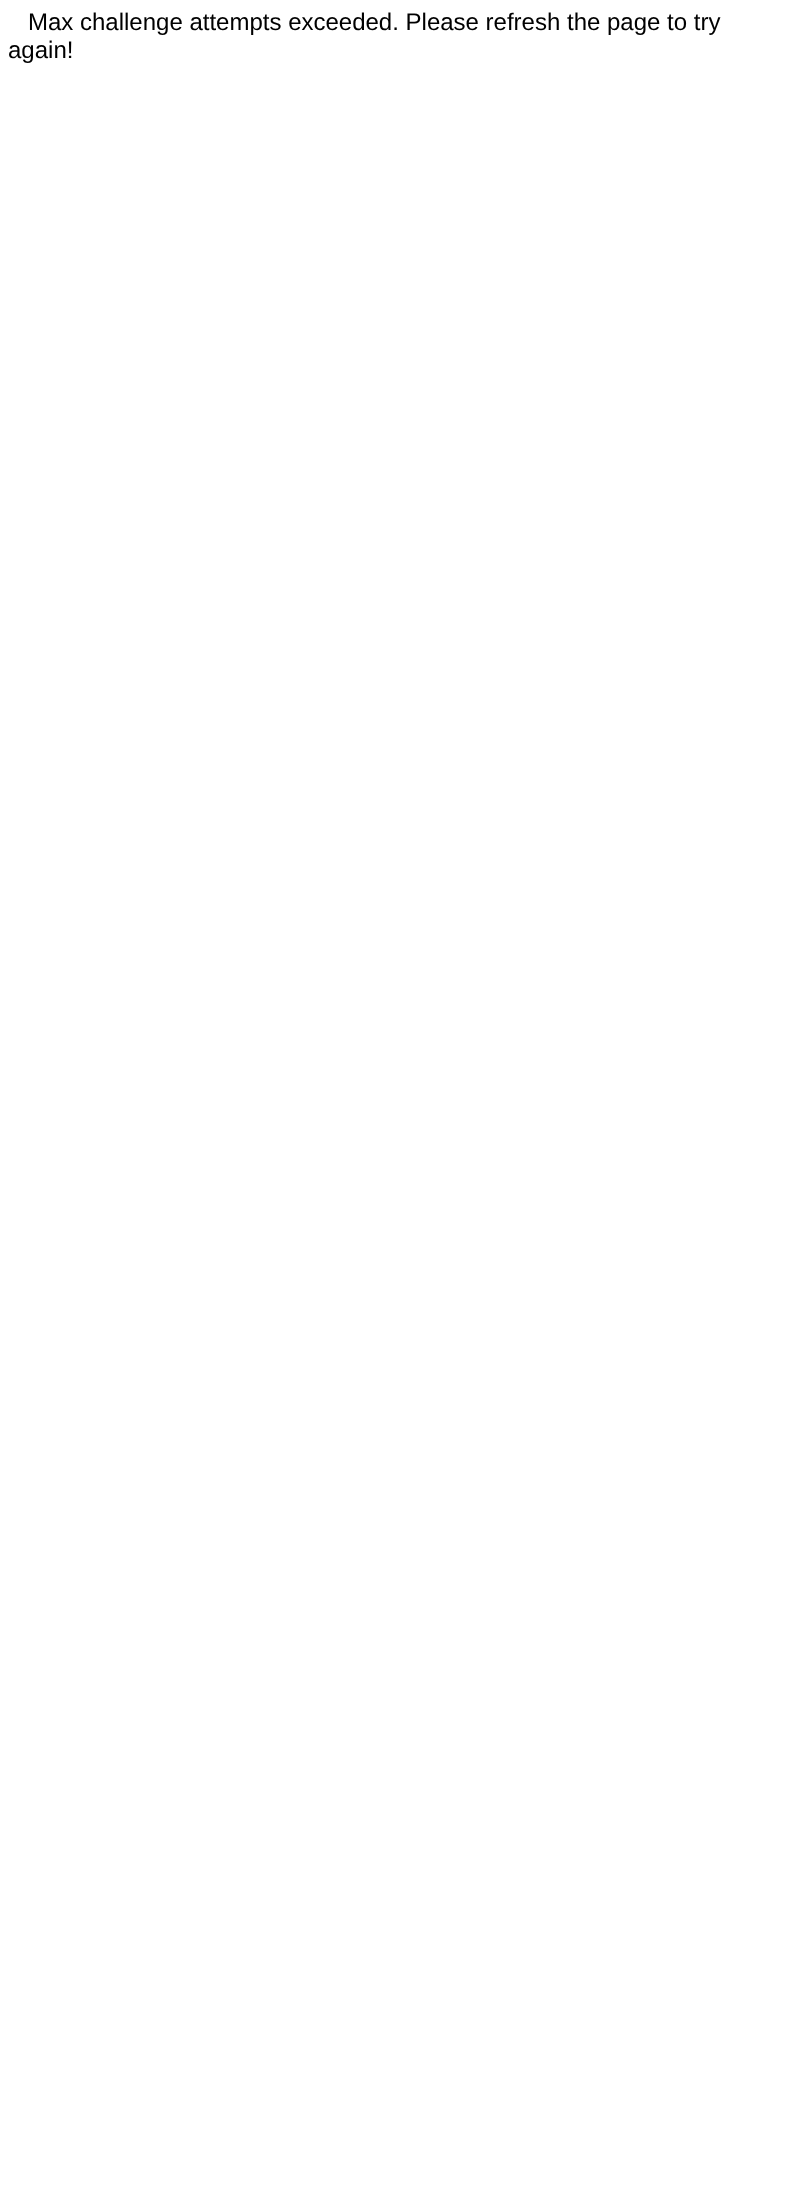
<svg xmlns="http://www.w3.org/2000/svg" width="795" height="2209">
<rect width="100%" height="100%" fill="#fff"/>
<text x="28" y="30" style="font-family:Liberation Sans;font-size:24px;fill:#000">Max challenge attempts exceeded. Please refresh the page to try</text>
<text x="8" y="58" style="font-family:Liberation Sans;font-size:24px;fill:#000">again!</text>
</svg>
